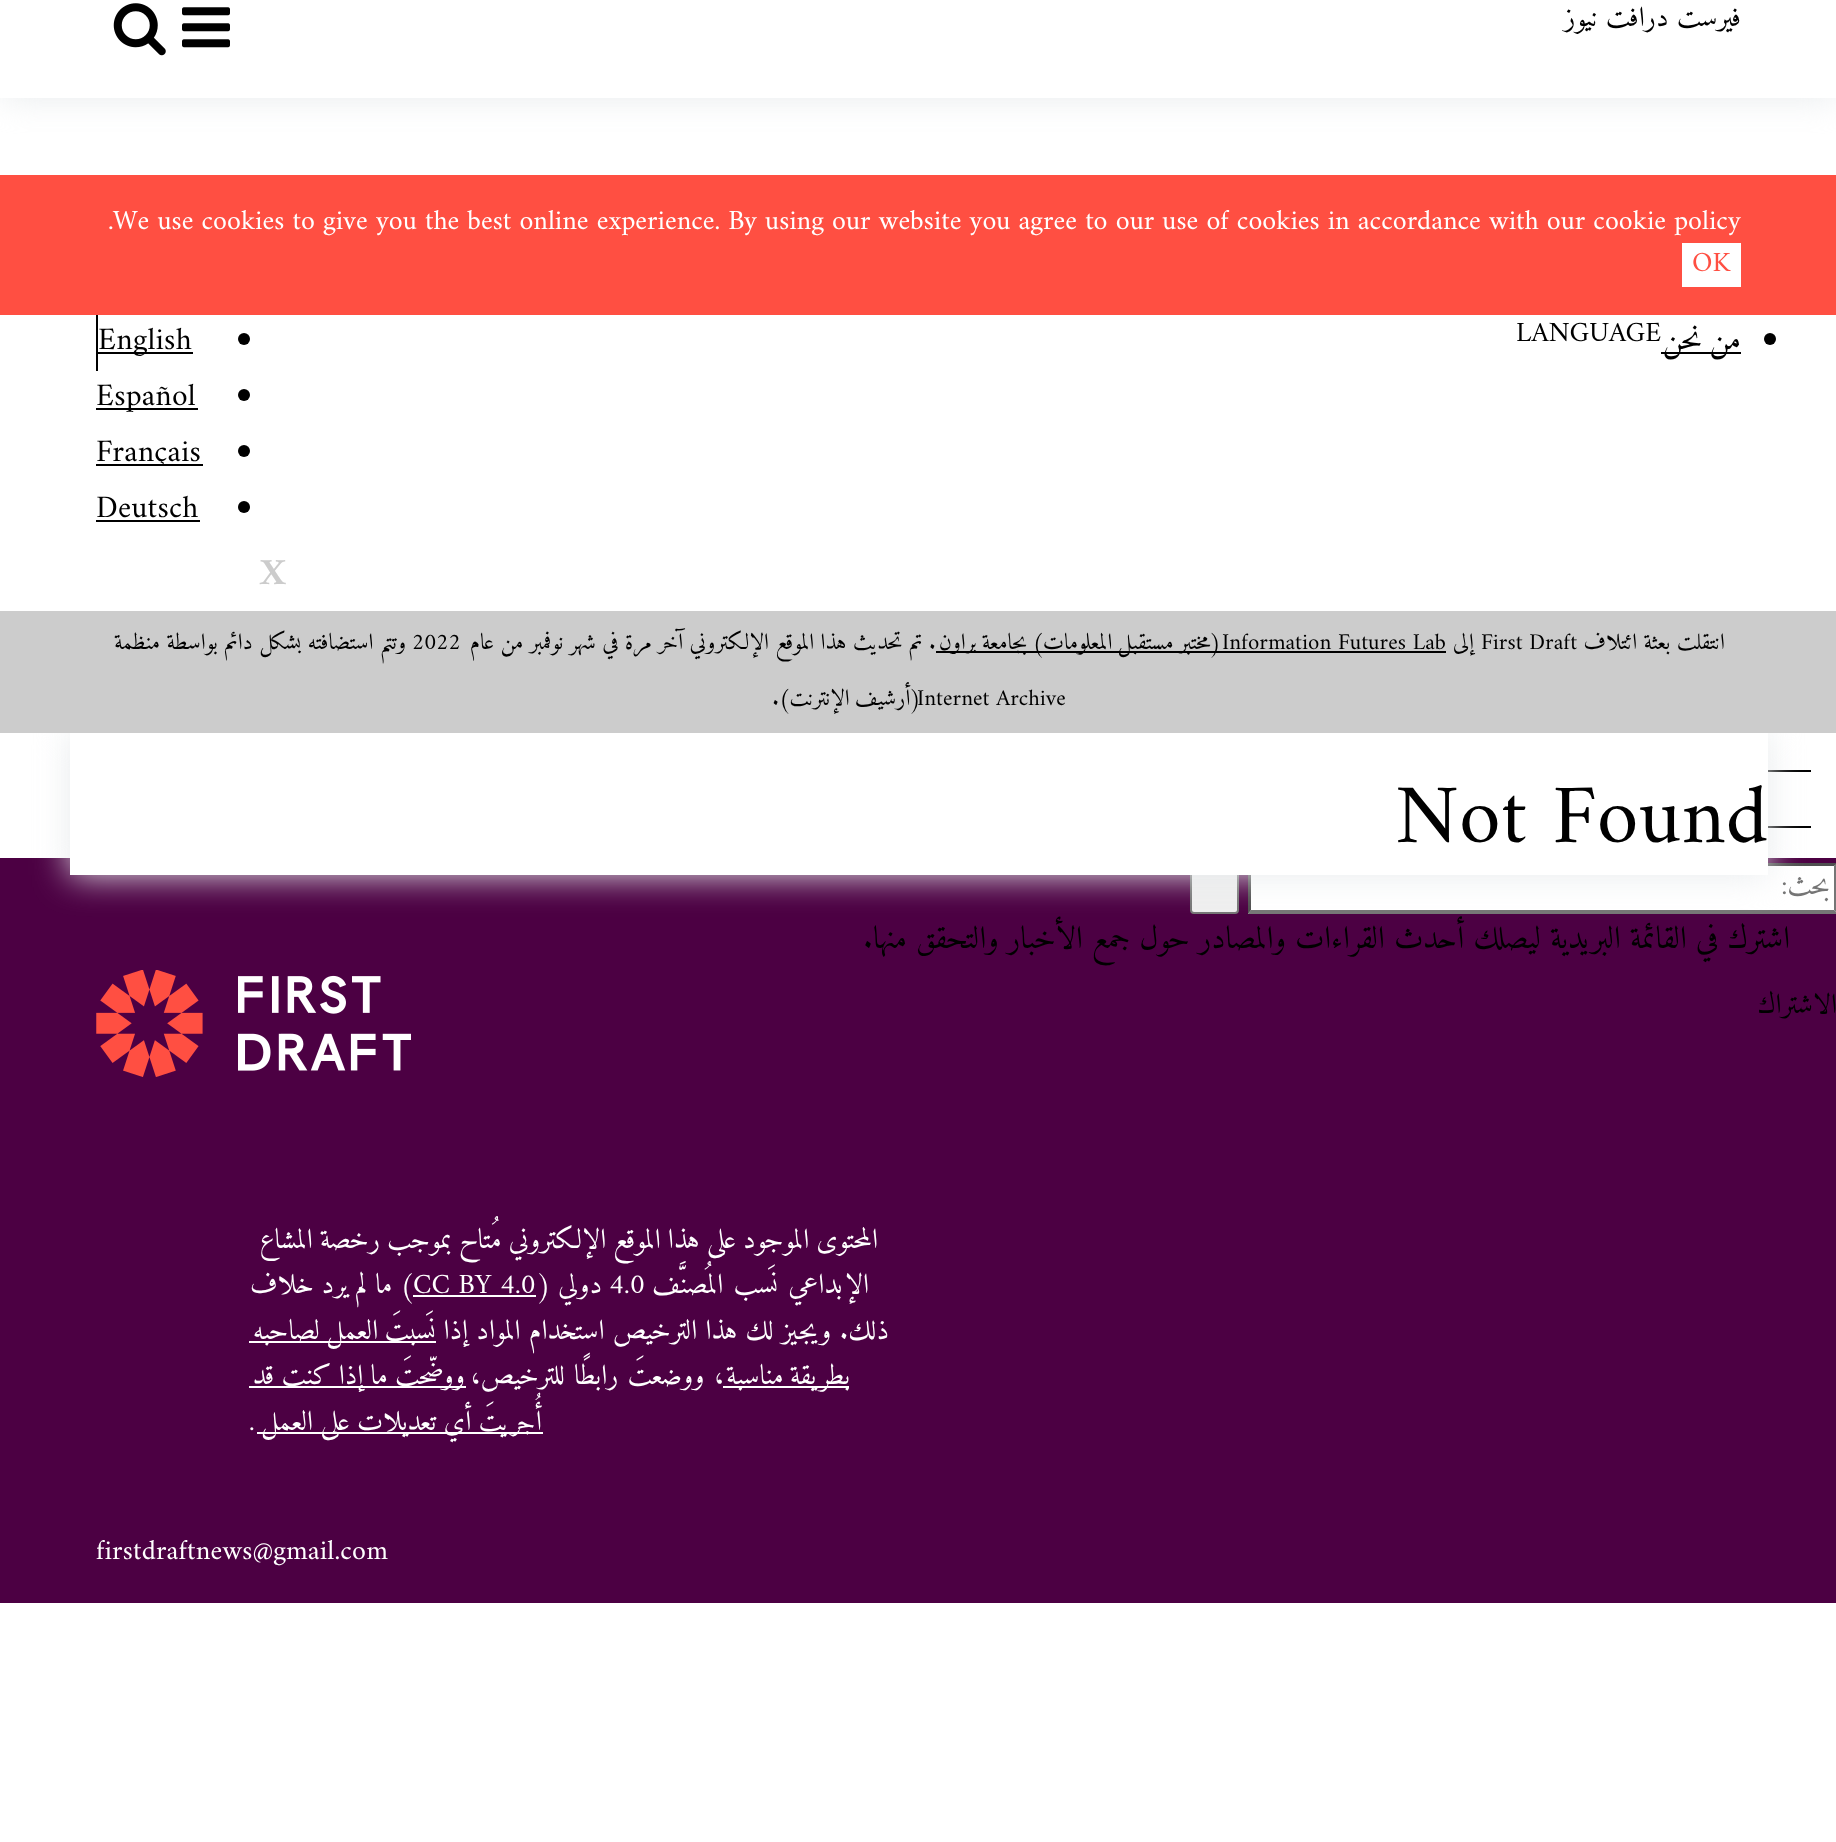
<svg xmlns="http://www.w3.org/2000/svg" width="1836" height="1842">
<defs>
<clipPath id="clip1"><rect x="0" y="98" width="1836" height="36"/></clipPath>
<clipPath id="clip2"><rect x="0" y="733" width="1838" height="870"/></clipPath>
</defs>
<rect width="100%" height="100%" fill="#fff"/>
<g clip-path="url(#clip1)">
<rect width="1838" height="98" fill="#e8ebed" filter="blur(17.5px)"/>
</g>
<text x="1741" y="26" style="font-family:Amiri;font-size:28px;direction:rtl;fill:#000">فيرست درافت نيوز</text>
<image x="182" y="7" width="48" height="41" href="media/1.png"/>
<image x="113" y="3" width="53" height="53" href="media/2.png"/>
<rect y="175" width="1836" height="140" fill="#ff4f42"/>
<text x="113" y="229" style="font-family:Amiri;font-size:28px;fill:#fff">We use cookies to give you the best online experience. By using our website you agree to our use of cookies in accordance with our cookie policy</text>
<text x="108" y="229" style="font-family:Amiri;font-size:28px;fill:#fff">.</text>
<rect x="1682" y="243" width="59" height="44" fill="#fff"/>
<text x="1692" y="271" style="font-family:Amiri;font-size:28px;fill:#ff4f42">OK</text>
<circle cx="1770" cy="339" r="6" fill="#000"/>
<rect x="1661" y="352" width="80" height="2" fill="#000"/>
<text x="1741" y="349" word-spacing="-2" style="font-family:Amiri;font-size:31.5px;letter-spacing:0.25px;direction:rtl;fill:#000">من نحن</text>
<text x="1516" y="341" style="font-family:Amiri;font-size:28px;fill:#000">LANGUAGE</text>
<rect x="96" y="315" width="2" height="56" fill="#000"/>
<circle cx="244" cy="339" r="6" fill="#000"/>
<rect x="98" y="352" width="95" height="2" fill="#000"/>
<text x="98" y="349" style="font-family:Amiri;font-size:31.5px;letter-spacing:0.25px;fill:#000">English</text>
<circle cx="244" cy="395" r="6" fill="#000"/>
<rect x="96" y="408" width="102" height="2" fill="#000"/>
<text x="96" y="405" style="font-family:Amiri;font-size:31.5px;letter-spacing:0.25px;fill:#000">Español</text>
<circle cx="244" cy="451" r="6" fill="#000"/>
<rect x="96" y="464" width="107" height="2" fill="#000"/>
<text x="96" y="461" style="font-family:Amiri;font-size:31.5px;letter-spacing:0.25px;fill:#000">Français</text>
<circle cx="244" cy="507" r="6" fill="#000"/>
<text x="96" y="517" style="font-family:Amiri;font-size:31.5px;letter-spacing:0.25px;fill:#000">Deutsch</text>
<rect x="96" y="520" width="104" height="2" fill="#000"/>
<text x="260" y="584" style="font-family:Amiri;font-size:37px;font-weight:bold;letter-spacing:0.05px;fill:#ccc">X</text>
<rect y="611" width="1836" height="122" fill="#ccc"/>
<text x="1725" y="649" word-spacing="-0.25" style="font-family:Amiri;font-size:22.75px;letter-spacing:0.05px;direction:rtl;fill:#000">انتقلت بعثة ائتلاف</text>
<text x="1481" y="649" style="font-family:Amiri;font-size:22.75px;letter-spacing:0.05px;fill:#000">First Draft</text>
<text x="1474" y="649" style="font-family:Amiri;font-size:22.75px;letter-spacing:0.05px;direction:rtl;fill:#000">إلى</text>
<text x="1222" y="649" style="font-family:Amiri;font-size:22.75px;letter-spacing:0.05px;fill:#000">Information Futures Lab</text>
<rect x="936" y="651" width="510" height="2" fill="#000"/>
<text x="1221" y="649" word-spacing="-1.5" style="font-family:Amiri;font-size:22.75px;letter-spacing:0.05px;direction:rtl;fill:#000">(مختبر مستقبل المعلومات) بجامعة براون</text>
<text x="936" y="649" word-spacing="-0.25" style="font-family:Amiri;font-size:22.75px;letter-spacing:0.05px;direction:rtl;fill:#000">. تم تحديث هذا الموقع الإلكتروني آخر مرة في شهر نوفمبر من عام</text>
<text x="412" y="649" style="font-family:Amiri;font-size:22.75px;letter-spacing:0.05px;fill:#000">2022</text>
<text x="406" y="649" word-spacing="-0.25" style="font-family:Amiri;font-size:22.75px;letter-spacing:0.05px;direction:rtl;fill:#000">وتتم استضافته بشكل دائم بواسطة منظمة</text>
<text x="921" y="705" word-spacing="-1.5" style="font-family:Amiri;font-size:22.75px;letter-spacing:0.05px;direction:rtl;fill:#000">(أرشيف الإنترنت).</text>
<text x="917" y="705" style="font-family:Amiri;font-size:22.75px;letter-spacing:0.05px;fill:#000">Internet Archive</text>
<rect y="858" width="1836" height="745" fill="#4c0043"/>
<rect x="1768" y="770" width="43" height="2" fill="#000"/>
<rect x="1768" y="826" width="43" height="2" fill="#000"/>
<rect x="1248" y="864" width="588" height="50" fill="#fff"/>
<path d="M1248 863h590l-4 3h-583z" fill="#4f4f4f"/>
<path d="M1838 863v51l-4-4v-44z" fill="#767676"/>
<path d="M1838 914h-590l3-4h583z" fill="#767676"/>
<path d="M1248 914v-51l3 3v44z" fill="#4f4f4f"/>
<rect x="1191" y="864" width="47" height="49" rx="3" fill="#efefef" stroke="#767676" stroke-width="2"/>
<g clip-path="url(#clip2)">
<rect x="70" y="733" width="1698" height="142" fill="#e8ebed" filter="blur(17.5px)"/>
</g>
<rect x="70" y="733" width="1698" height="142" fill="#fff"/>
<text x="1395" y="842" style="font-family:Amiri;font-size:84px;letter-spacing:0.5px;fill:#000">Not Found</text>
<image x="96" y="970" width="315" height="107" href="media/3.png"/>
<text x="878" y="1248" word-spacing="-1.25" style="font-family:Amiri;font-size:28px;letter-spacing:0.18px;direction:rtl;fill:#fff">المحتوى الموجود على هذا الموقع الإلكتروني مُتاح بموجب رخصة المشاع</text>
<text x="869" y="1293" word-spacing="2" style="font-family:Amiri;font-size:28px;letter-spacing:0.18px;direction:rtl;fill:#fff">الإبداعي نَسب المُصنَّف</text>
<text x="609" y="1293" style="font-family:Amiri;font-size:28px;letter-spacing:0.18px;fill:#fff">4.0</text>
<text x="602" y="1293" word-spacing="-1" style="font-family:Amiri;font-size:28px;letter-spacing:0.18px;direction:rtl;fill:#fff">دولي (</text>
<text x="413" y="1293" style="font-family:Amiri;font-size:28px;letter-spacing:0.18px;fill:#fff">CC BY 4.0</text>
<rect x="413" y="1295" width="123" height="2" fill="#fff"/>
<text x="413" y="1293" word-spacing="-0.5" style="font-family:Amiri;font-size:28px;letter-spacing:0.18px;direction:rtl;fill:#fff">) ما لم يرد خلاف</text>
<text x="889" y="1339" style="font-family:Amiri;font-size:28px;letter-spacing:0.18px;direction:rtl;fill:#fff">ذلك. ويجيز لك هذا الترخيص استخدام المواد إذا</text>
<rect x="249" y="1341" width="187" height="2" fill="#fff"/>
<text x="436" y="1339" word-spacing="-2" style="font-family:Amiri;font-size:28px;letter-spacing:0.18px;direction:rtl;fill:#fff">نَسبتَ العمل لصاحبه</text>
<rect x="723" y="1386" width="126" height="2" fill="#fff"/>
<text x="850" y="1384" word-spacing="-2" style="font-family:Amiri;font-size:28px;letter-spacing:0.18px;direction:rtl;fill:#fff">بطريقة مناسبة</text>
<text x="724" y="1384" word-spacing="1" style="font-family:Amiri;font-size:28px;letter-spacing:0.18px;direction:rtl;fill:#fff">، ووضعتَ رابطًا للترخيص،</text>
<rect x="249" y="1386" width="217" height="2" fill="#fff"/>
<text x="465" y="1384" word-spacing="-1" style="font-family:Amiri;font-size:28px;letter-spacing:0.18px;direction:rtl;fill:#fff">ووضّحتَ ما إذا كنت قد</text>
<rect x="257" y="1432" width="286" height="2" fill="#fff"/>
<text x="542" y="1430" word-spacing="-1" style="font-family:Amiri;font-size:28px;letter-spacing:0.18px;direction:rtl;fill:#fff">أُجريتَ أي تعديلات على العمل</text>
<text x="249" y="1430" style="font-family:Amiri;font-size:28px;letter-spacing:0.18px;fill:#fff">.</text>
<text x="96" y="1559" style="font-family:Amiri;font-size:28px;letter-spacing:0.18px;fill:#fff">firstdraftnews@gmail.com</text>
<text x="1830" y="894" style="font-family:Amiri;font-size:28px;direction:rtl;fill:#757575">بحث:</text>
<text x="1790" y="948" word-spacing="-0.25" style="font-family:Amiri;font-size:31.5px;letter-spacing:0.05px;direction:rtl;fill:#000">اشترك في القائمة البريدية ليصلك أحدث القراءات والمصادر حول جمع الأخبار والتحقق منها.</text>
<text x="1837" y="1013" style="font-family:Amiri;font-size:28px;direction:rtl;fill:#000">الاشتراك</text>
</svg>
